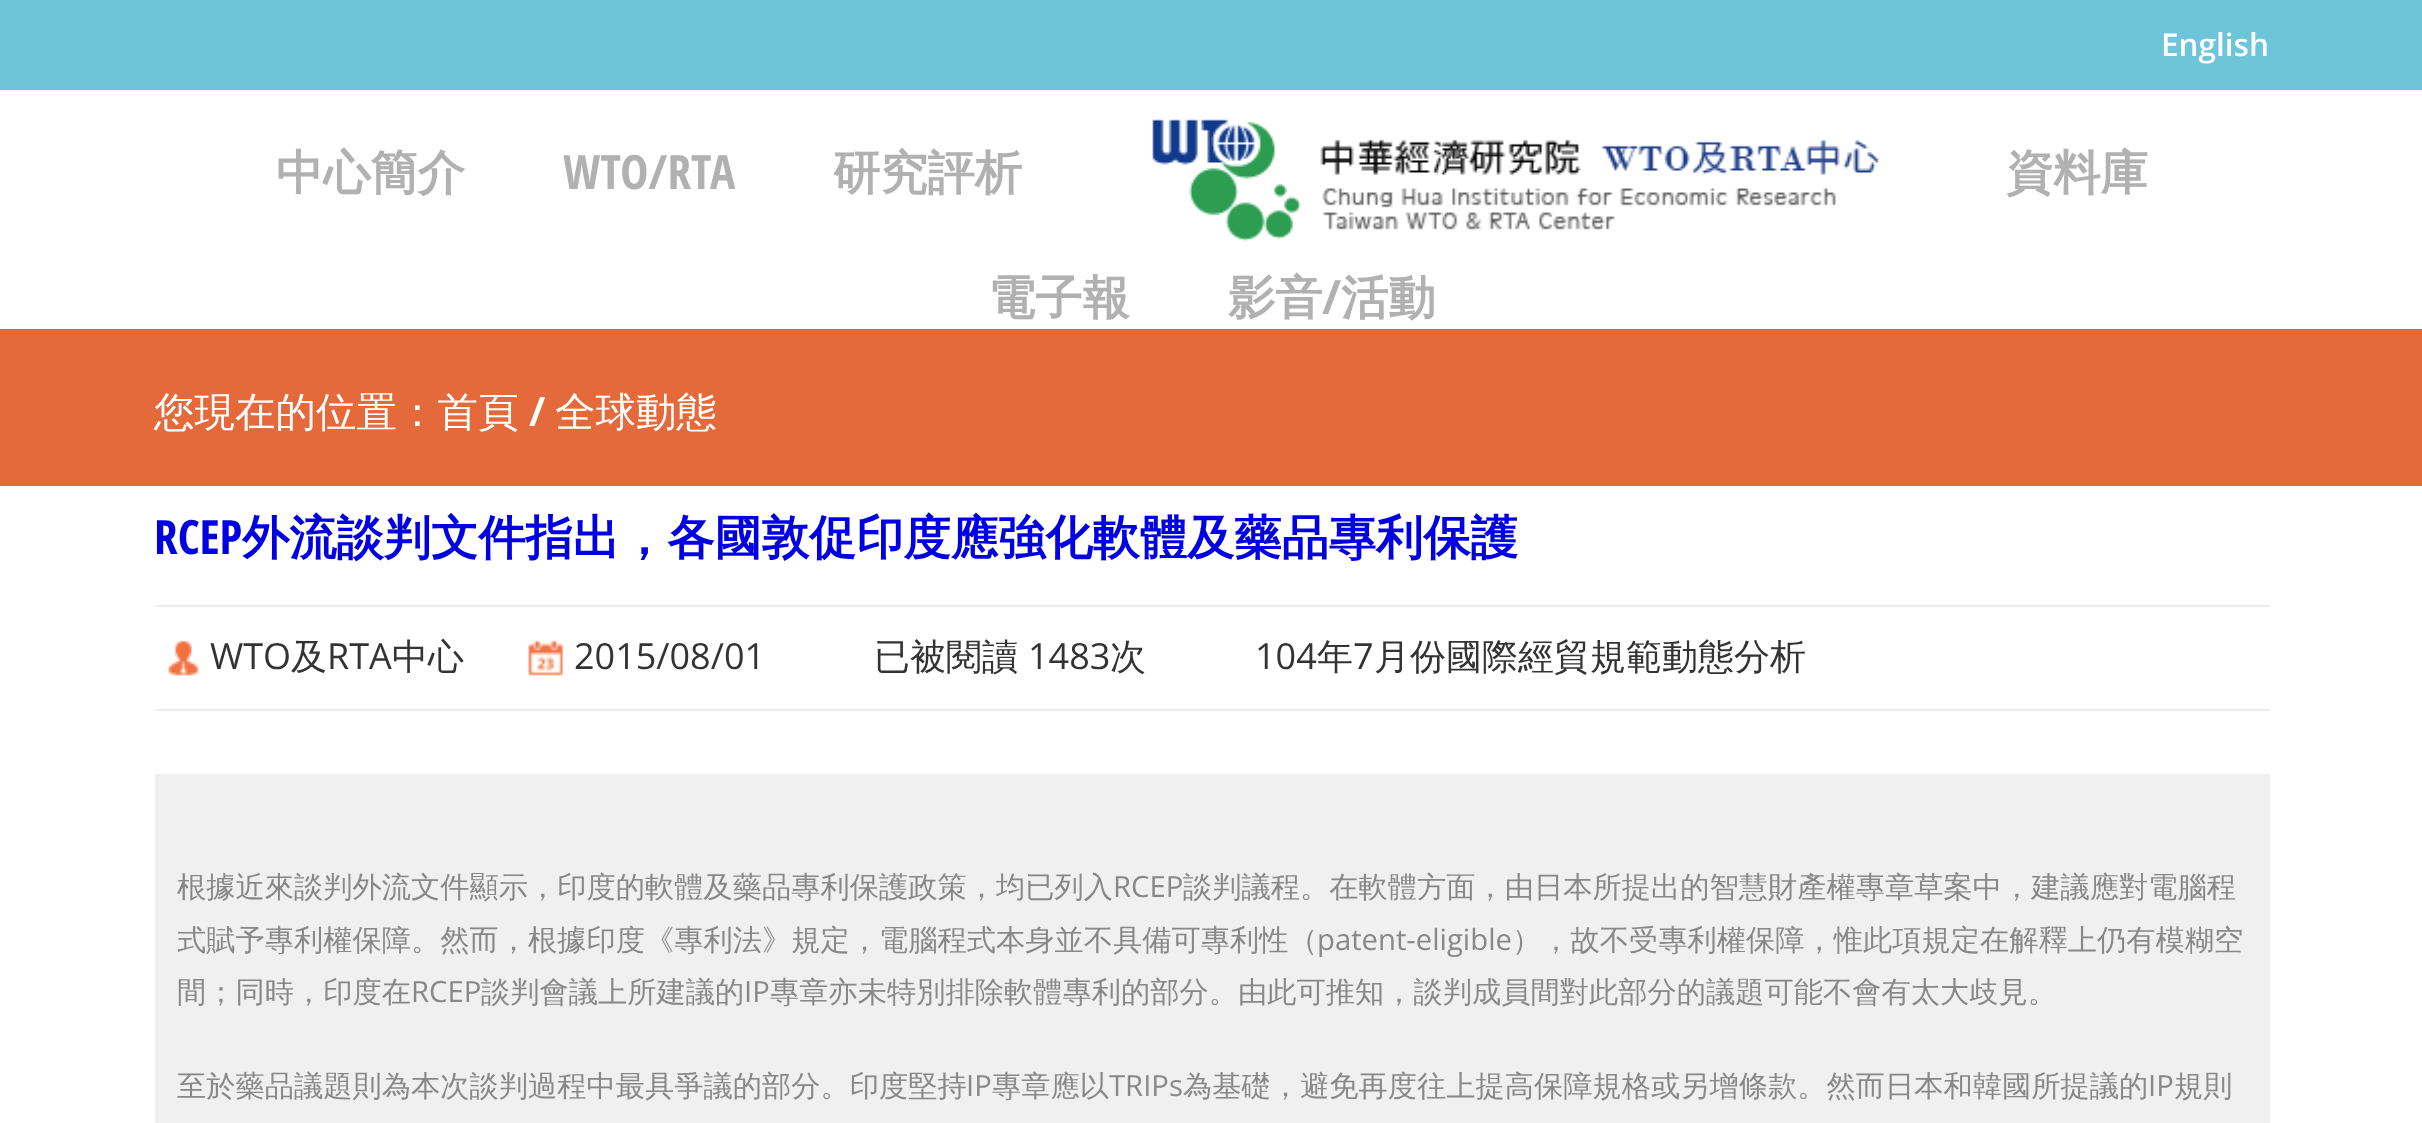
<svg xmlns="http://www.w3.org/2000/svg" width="2422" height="1123">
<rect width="100%" height="100%" fill="#fff"/>
<rect width="2422" height="90" fill="#6cc5d9"/>
<text x="2161" y="56" style="font-family:Open Sans;font-size:31.5px;font-weight:600;fill:#fff">English</text>
<text x="276" y="189" style="font-family:WenQuanYi Zen Hei;font-size:47.25px;font-weight:bold;fill:#b1b1b1">中心簡介</text>
<text x="563" y="189" style="font-family:Open Sans Condensed;font-size:47.25px;font-weight:bold;fill:#b1b1b1">WTO/RTA</text>
<text x="833" y="189" style="font-family:WenQuanYi Zen Hei;font-size:47.25px;font-weight:bold;fill:#b1b1b1">研究評析</text>
<image x="1152" y="119" width="728" height="123" href="media/1.png"/>
<text x="2006" y="189" style="font-family:WenQuanYi Zen Hei;font-size:47.25px;font-weight:bold;fill:#b1b1b1">資料庫</text>
<text x="988" y="314" style="font-family:WenQuanYi Zen Hei;font-size:47.25px;font-weight:bold;fill:#b1b1b1">電子報</text>
<text x="1228" y="314" style="font-family:WenQuanYi Zen Hei;font-size:47.25px;font-weight:bold;fill:#b1b1b1">影音</text>
<text x="1322" y="314" style="font-family:Open Sans Condensed;font-size:47.25px;font-weight:bold;fill:#b1b1b1">/</text>
<text x="1341" y="314" style="font-family:WenQuanYi Zen Hei;font-size:47.25px;font-weight:bold;fill:#b1b1b1">活動</text>
<rect y="329" width="2422" height="157" fill="#e46a3b"/>
<text x="154" y="426" style="font-family:WenQuanYi Zen Hei;font-size:40.5px;font-weight:500;fill:#fff">您現在的位置：首頁</text>
<text x="529" y="426" style="font-family:Open Sans Condensed;font-size:40.5px;font-weight:bold;fill:#fff">/</text>
<text x="555" y="426" style="font-family:WenQuanYi Zen Hei;font-size:40.5px;font-weight:500;fill:#fff">全球動態</text>
<text x="154" y="554" style="font-family:Open Sans Condensed;font-size:47.25px;font-weight:bold;fill:#0000e3">RCEP</text>
<text x="242" y="554" style="font-family:WenQuanYi Zen Hei;font-size:47.25px;font-weight:bold;fill:#0000e3">外流談判文件指出，各國敦促印度應強化軟體及藥品專利保護</text>
<rect x="155" y="605" width="2115" height="2" fill="#eee"/>
<rect x="155" y="709" width="2115" height="2" fill="#eee"/>
<image x="168" y="640" width="31" height="36" href="media/2.png"/>
<text x="210" y="669" style="font-family:Open Sans;font-size:36px;fill:#333">WTO</text>
<text x="291" y="669" style="font-family:WenQuanYi Zen Hei;font-size:36px;font-weight:500;fill:#333">及</text>
<text x="327" y="669" style="font-family:Open Sans;font-size:36px;fill:#333">RTA</text>
<text x="392" y="669" style="font-family:WenQuanYi Zen Hei;font-size:36px;font-weight:500;fill:#333">中心</text>
<image x="528" y="640" width="36" height="36" href="media/3.png"/>
<text x="574" y="669" style="font-family:Open Sans;font-size:36px;fill:#333">2015/08/01</text>
<text x="874" y="669" style="font-family:WenQuanYi Zen Hei;font-size:36px;font-weight:500;fill:#333">已被閱讀</text>
<text x="1028" y="669" style="font-family:Open Sans;font-size:36px;fill:#333">1483</text>
<text x="1110" y="669" style="font-family:WenQuanYi Zen Hei;font-size:36px;font-weight:500;fill:#333">次</text>
<text x="1255" y="669" style="font-family:Open Sans;font-size:36px;fill:#333">104</text>
<text x="1317" y="669" style="font-family:WenQuanYi Zen Hei;font-size:36px;font-weight:500;fill:#333">年</text>
<text x="1353" y="669" style="font-family:Open Sans;font-size:36px;fill:#333">7</text>
<text x="1374" y="669" style="font-family:WenQuanYi Zen Hei;font-size:36px;font-weight:500;fill:#333">月份國際經貿規範動態分析</text>
<rect x="155" y="774" width="2115" height="349" fill="#f0f0f0"/>
<text x="177" y="897" style="font-family:WenQuanYi Zen Hei;font-size:29.25px;font-weight:500;fill:#888">根據近來談判外流文件顯示，印度的軟體及藥品專利保護政策，均已列入</text>
<text x="1113" y="897" style="font-family:Open Sans;font-size:29.25px;fill:#888">RCEP</text>
<text x="1183" y="897" style="font-family:WenQuanYi Zen Hei;font-size:29.25px;font-weight:500;fill:#888">談判議程。在軟體方面，由日本所提出的智慧財產權專章草案中，建議應對電腦程</text>
<text x="177" y="950" style="font-family:WenQuanYi Zen Hei;font-size:29.25px;font-weight:500;fill:#888">式賦予專利權保障。然而，根據印度《專利法》規定，電腦程式本身並不具備可專利性（</text>
<text x="1317" y="950" style="font-family:Open Sans;font-size:29.25px;fill:#888">patent-eligible</text>
<text x="1512" y="950" style="font-family:WenQuanYi Zen Hei;font-size:29.25px;font-weight:500;fill:#888">），故不受專利權保障，惟此項規定在解釋上仍有模糊空</text>
<text x="177" y="1002" style="font-family:WenQuanYi Zen Hei;font-size:29.25px;font-weight:500;fill:#888">間；同時，印度在</text>
<text x="411" y="1002" style="font-family:Open Sans;font-size:29.25px;fill:#888">RCEP</text>
<text x="481" y="1002" style="font-family:WenQuanYi Zen Hei;font-size:29.25px;font-weight:500;fill:#888">談判會議上所建議的</text>
<text x="744" y="1002" style="font-family:Open Sans;font-size:29.25px;fill:#888">IP</text>
<text x="770" y="1002" style="font-family:WenQuanYi Zen Hei;font-size:29.25px;font-weight:500;fill:#888">專章亦未特別排除軟體專利的部分。由此可推知，談判成員間對此部分的議題可能不會有太大歧見。</text>
<text x="177" y="1096" style="font-family:WenQuanYi Zen Hei;font-size:29.25px;font-weight:500;fill:#888">至於藥品議題則為本次談判過程中最具爭議的部分。印度堅持</text>
<text x="966" y="1096" style="font-family:Open Sans;font-size:29.25px;fill:#888">IP</text>
<text x="992" y="1096" style="font-family:WenQuanYi Zen Hei;font-size:29.25px;font-weight:500;fill:#888">專章應以</text>
<text x="1109" y="1096" style="font-family:Open Sans;font-size:29.25px;fill:#888">TRIPs</text>
<text x="1183" y="1096" style="font-family:WenQuanYi Zen Hei;font-size:29.25px;font-weight:500;fill:#888">為基礎，避免再度往上提高保障規格或另增條款。然而日本和韓國所提議的</text>
<text x="2148" y="1096" style="font-family:Open Sans;font-size:29.25px;fill:#888">IP</text>
<text x="2174" y="1096" style="font-family:WenQuanYi Zen Hei;font-size:29.25px;font-weight:500;fill:#888">規則</text>
</svg>
